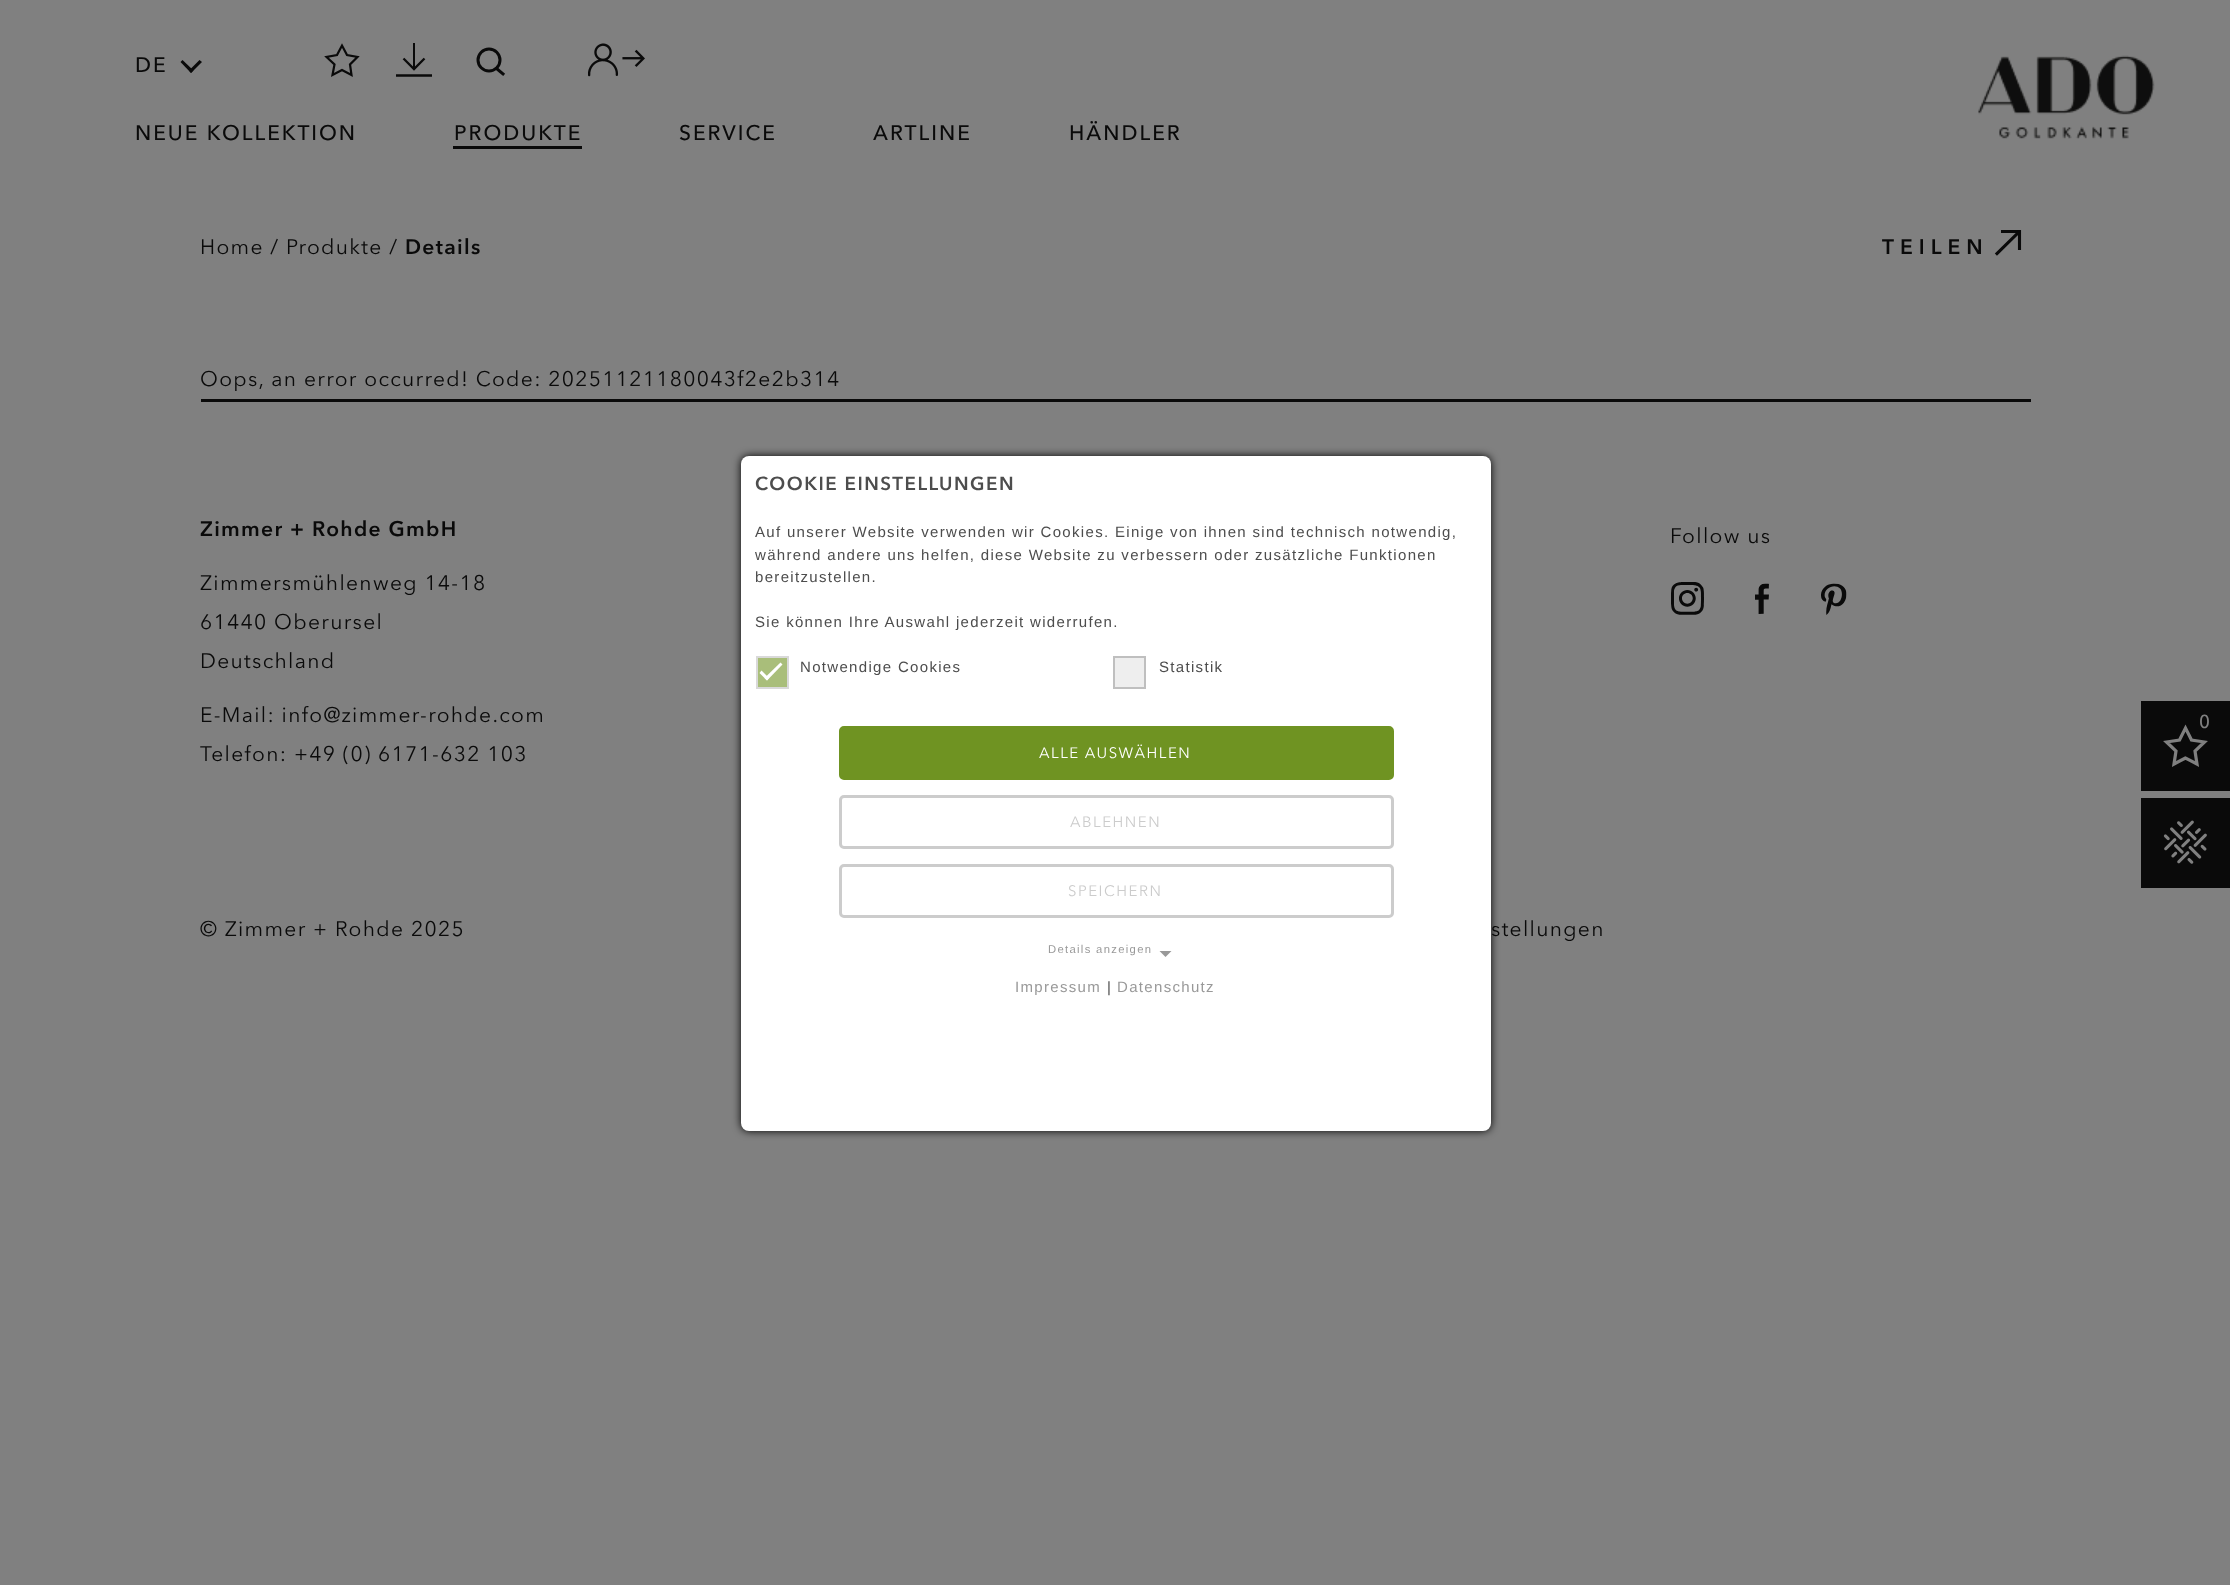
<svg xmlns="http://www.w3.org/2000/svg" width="2230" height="1585">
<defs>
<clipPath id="clip1"><rect x="396" y="42" width="36" height="36"/></clipPath>
</defs>
<rect width="100%" height="100%" fill="#808080"/>
<text x="135" y="72" style="font-family:Avenir;font-size:21px;font-weight:500;letter-spacing:2px;fill:#0a0a0a">DE</text>
<path d="M199.5 60l2.5 2l-11 11l-2-2.5z" fill="#0a0a0a"/>
<path d="M182.5 60l11 10.5l-2.5 2.5l-10.5-11z" fill="#0a0a0a"/>
<path d="M342 70l-9.5 5l2-10.5l-8-7.5l10.5-2l5-9.5l5 9.5l10.5 2l-7.5 7.5l1.5 10.5z" fill="none" stroke="#0a0a0a" stroke-width="2.2"/>
<path d="M424.5 58.5l-10.5 10.5l-10.5-10.5" fill="none" stroke="#0a0a0a" stroke-width="2.3"/>
<rect x="413" y="43" width="2" height="25" fill="#0a0a0a"/>
<g clip-path="url(#clip1)">
<path d="M397 75.5h34" fill="none" stroke="#0a0a0a" stroke-width="2.3" stroke-linecap="square"/>
</g>
<circle cx="489" cy="60" r="11" fill="none" stroke="#0a0a0a" stroke-width="3"/>
<path d="M496.5 68.5l6.5 5.5" fill="none" stroke="#0a0a0a" stroke-width="3" stroke-linecap="square"/>
<image x="588" y="43" width="57" height="34" href="media/1.png"/>
<image x="1978" y="55" width="177" height="84" href="media/2.png"/>
<text x="135" y="140" style="font-family:Avenir;font-size:21px;font-weight:500;letter-spacing:2px;fill:#0a0a0a">NEUE KOLLEKTION</text>
<text x="454" y="140" style="font-family:Avenir;font-size:21px;font-weight:500;letter-spacing:2px;fill:#0a0a0a">PRODUKTE</text>
<rect x="453" y="146" width="129" height="3" fill="#0a0a0a"/>
<text x="679" y="140" style="font-family:Avenir;font-size:21px;font-weight:500;letter-spacing:2px;fill:#0a0a0a">SERVICE</text>
<text x="873" y="140" style="font-family:Avenir;font-size:21px;font-weight:500;letter-spacing:2px;fill:#0a0a0a">ARTLINE</text>
<text x="1069" y="140" style="font-family:Avenir;font-size:21px;font-weight:500;letter-spacing:2px;fill:#0a0a0a">HÄNDLER</text>
<text x="200" y="254" style="font-family:Avenir;font-size:21px;letter-spacing:1.32px;fill:#0a0a0a">Home / Produkte /</text>
<text x="405" y="254" style="font-family:Avenir;font-size:21px;font-weight:bold;letter-spacing:1.32px;fill:#0a0a0a">Details</text>
<text x="1882" y="254" style="font-family:Avenir;font-size:21px;font-weight:bold;letter-spacing:6px;fill:#0a0a0a">TEILEN</text>
<path d="M2001 231.5h18.5v18.5" fill="none" stroke="#0a0a0a" stroke-width="3.1"/>
<path d="M2018.5 232.5l-21.5 21" fill="none" stroke="#0a0a0a" stroke-width="3.1" stroke-linecap="square"/>
<text x="200" y="386" style="font-family:Avenir;font-size:21px;letter-spacing:1.32px;fill:#0a0a0a">Oops, an error occurred! Code: 20251121180043f2e2b314</text>
<rect x="201" y="399" width="1830" height="3" fill="#0a0a0a"/>
<text x="200" y="536" style="font-family:Avenir;font-size:21px;font-weight:bold;letter-spacing:1.32px;fill:#0a0a0a">Zimmer + Rohde GmbH</text>
<text x="200" y="590" style="font-family:Avenir;font-size:21px;letter-spacing:1.32px;fill:#0a0a0a">Zimmersmühlenweg 14-18</text>
<text x="200" y="629" style="font-family:Avenir;font-size:21px;letter-spacing:1.32px;fill:#0a0a0a">61440 Oberursel</text>
<text x="200" y="668" style="font-family:Avenir;font-size:21px;letter-spacing:1.32px;fill:#0a0a0a">Deutschland</text>
<text x="200" y="722" style="font-family:Avenir;font-size:21px;letter-spacing:1.32px;fill:#0a0a0a">E-Mail: info@zimmer-rohde.com</text>
<text x="200" y="761" style="font-family:Avenir;font-size:21px;letter-spacing:1.32px;fill:#0a0a0a">Telefon: +49 (0) 6171-632 103</text>
<text x="1670" y="543" style="font-family:Avenir;font-size:21px;letter-spacing:1.32px;fill:#0a0a0a">Follow us</text>
<image x="1671" y="582" width="33" height="33" href="media/3.png"/>
<image x="1755" y="583" width="14" height="31" href="media/4.png"/>
<image x="1821" y="583" width="26" height="32" href="media/5.png"/>
<text x="200" y="936" style="font-family:Avenir;font-size:21px;letter-spacing:1.32px;fill:#0a0a0a">© Zimmer + Rohde 2025</text>
<text x="1491" y="936" style="font-family:Avenir;font-size:21px;letter-spacing:1.32px;fill:#0a0a0a">stellungen</text>
<rect x="2141" y="701" width="89" height="90" fill="#0a0a0a"/>
<text x="2199" y="728" style="font-family:'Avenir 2';font-size:18px;font-weight:bold;letter-spacing:1.32px;fill:#808080">0</text>
<path d="M2185.5 758l-11.5 6l2-13l-9.5-9l13-2l6-12l6 12l13 2l-9.5 9l2 13z" fill="none" stroke="#808080" stroke-width="3.2"/>
<rect x="2141" y="798" width="89" height="90" fill="#0a0a0a"/>
<image x="2163" y="820" width="44" height="44" href="media/6.png"/>
<rect x="741" y="456" width="750" height="675" rx="8" fill="#000" filter="blur(4px)"/>
<rect x="741" y="456" width="750" height="675" rx="8" fill="#fff"/>
<text x="755" y="490" style="font-family:Avenir;font-size:18.75px;font-weight:bold;letter-spacing:1.5px;fill:#4d4d4d">COOKIE EINSTELLUNGEN</text>
<text x="755" y="537" style="font-family:Liberation Sans;font-size:15px;letter-spacing:1.32px;fill:#4d4d4d">Auf unserer Website verwenden wir Cookies. Einige von ihnen sind technisch notwendig,</text>
<text x="755" y="560" style="font-family:Liberation Sans;font-size:15px;letter-spacing:1.32px;fill:#4d4d4d">während andere uns helfen, diese Website zu verbessern oder zusätzliche Funktionen</text>
<text x="755" y="582" style="font-family:Liberation Sans;font-size:15px;letter-spacing:1.32px;fill:#4d4d4d">bereitzustellen.</text>
<text x="755" y="627" style="font-family:Liberation Sans;font-size:15px;letter-spacing:1.32px;fill:#4d4d4d">Sie können Ihre Auswahl jederzeit widerrufen.</text>
<rect x="757" y="657" width="31" height="31" fill="#a9be7a" stroke="#d9d9d9" stroke-width="2"/>
<path d="M780.5 662.5l2 2l-15.5 16l-2.5-2.5z" fill="#fff"/>
<path d="M761.5 670.5l7.5 7.5l-2 2.5l-7.5-7.5z" fill="#fff"/>
<text x="800" y="672" style="font-family:Liberation Sans;font-size:15px;letter-spacing:1.32px;fill:#4d4d4d">Notwendige Cookies</text>
<rect x="1114" y="657" width="31" height="31" fill="#eee" stroke="#bfbfbf" stroke-width="2"/>
<text x="1159" y="672" style="font-family:Liberation Sans;font-size:15px;letter-spacing:1.32px;fill:#4d4d4d">Statistik</text>
<rect x="840.5" y="727.5" width="552" height="51" rx="3.5" fill="#6f9322" stroke="#6f9322" stroke-width="3"/>
<text x="1039" y="758" style="font-family:Avenir;font-size:15px;letter-spacing:1.5px;fill:#fff">ALLE AUSWÄHLEN</text>
<rect x="840.5" y="796.5" width="552" height="51" rx="3.5" fill="none" stroke="#ccc" stroke-width="3"/>
<text x="1070" y="827" style="font-family:Avenir;font-size:15px;letter-spacing:1.5px;fill:#ccc">ABLEHNEN</text>
<rect x="840.5" y="865.5" width="552" height="51" rx="3.5" fill="none" stroke="#ccc" stroke-width="3"/>
<text x="1068" y="896" style="font-family:Avenir;font-size:15px;letter-spacing:1.5px;fill:#ccc">SPEICHERN</text>
<text x="1048" y="953" style="font-family:Liberation Sans;font-size:11.25px;letter-spacing:1.32px;fill:#999">Details anzeigen</text>
<path d="M1159.5 951h12l-6 6z" fill="#999"/>
<text x="1015" y="992" style="font-family:Liberation Sans;font-size:15px;letter-spacing:1.32px;fill:#999">Impressum</text>
<text x="1107" y="992" style="font-family:Liberation Sans;font-size:15px;letter-spacing:1.32px;fill:#4d4d4d">|</text>
<text x="1117" y="992" style="font-family:Liberation Sans;font-size:15px;letter-spacing:1.32px;fill:#999">Datenschutz</text>
</svg>
